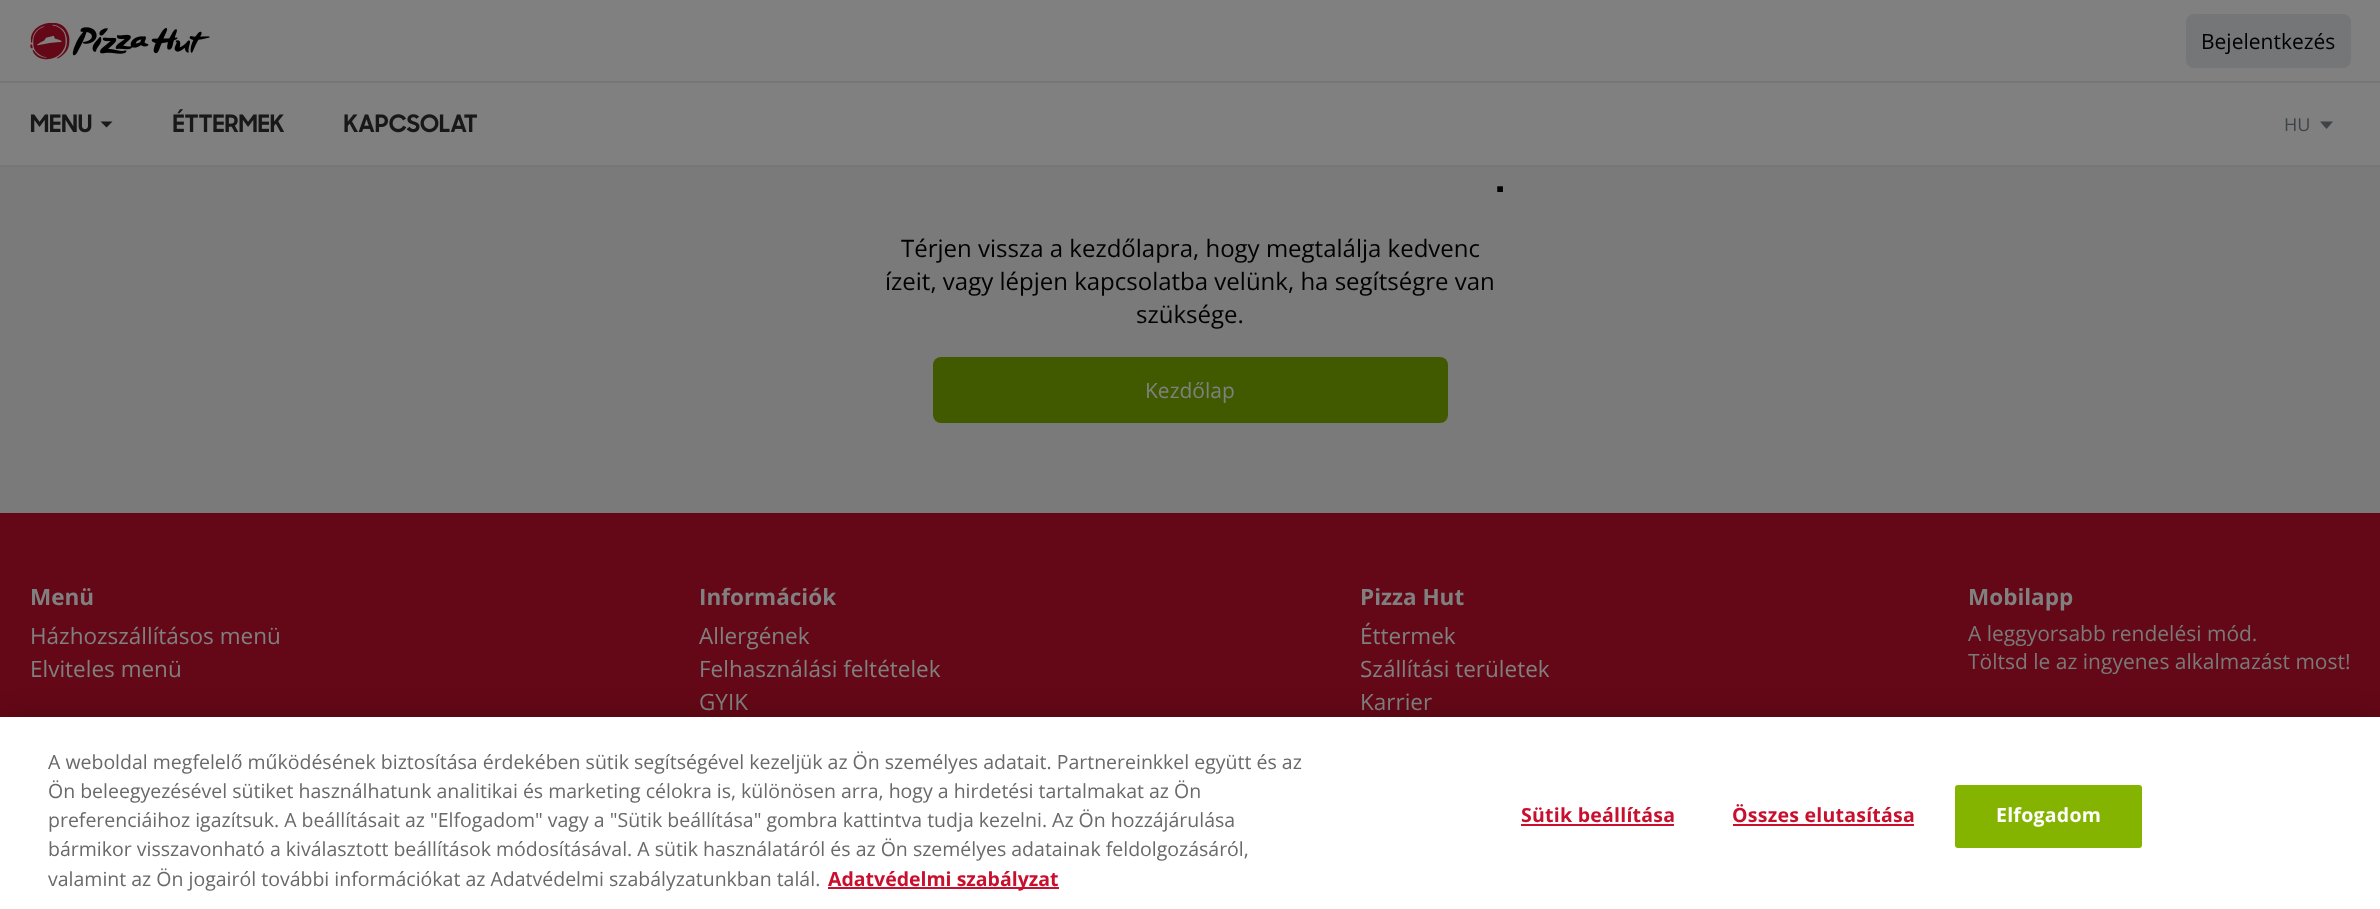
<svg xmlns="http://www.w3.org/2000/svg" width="2380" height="909">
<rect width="100%" height="100%" fill="#7a7a7a"/>
<rect width="2380" height="81" fill="#808080"/>
<rect y="81" width="2380" height="2" fill="#757677"/>
<image x="30" y="23" width="180" height="37" href="media/1.png"/>
<rect x="2186" y="14" width="165" height="54" rx="8" fill="#757677"/>
<text x="2201" y="49" style="font-family:Open Sans;font-size:21px;fill:#000">Bejelentkezés</text>
<rect y="83" width="2380" height="82" fill="#808080"/>
<rect y="165" width="2380" height="2" fill="#757677"/>
<image x="30" y="114" width="62" height="19" href="media/2.png"/>
<path d="M100.5 121.5h12l-6 6z" fill="#191919"/>
<image x="173" y="109" width="112" height="23" href="media/3.png"/>
<image x="344" y="114" width="133" height="19" href="media/4.png"/>
<text x="2284" y="131" style="font-family:Open Sans;font-size:18px;fill:#3d4347">HU</text>
<path d="M2320 121.5h13l-6.5 7.5z" fill="#3d4347"/>
<text x="1495" y="192" style="font-family:Bebas Neue;font-size:54px;fill:#000">.</text>
<text x="901" y="257" style="font-family:Open Sans;font-size:24px;fill:#000">Térjen vissza a kezdőlapra, hogy megtalálja kedvenc</text>
<text x="885" y="290" style="font-family:Open Sans;font-size:24px;fill:#000">ízeit, vagy lépjen kapcsolatba velünk, ha segítségre van</text>
<text x="1136" y="323" style="font-family:Open Sans;font-size:24px;fill:#000">szüksége.</text>
<rect x="933" y="357" width="515" height="66" rx="8" fill="#415a00"/>
<text x="1145" y="398" style="font-family:Open Sans;font-size:21px;fill:#808080">Kezdőlap</text>
<rect y="513" width="2380" height="204" fill="#640817"/>
<text x="30" y="605" style="font-family:Open Sans;font-size:22.5px;font-weight:bold;fill:#808080">Menü</text>
<text x="30" y="644" style="font-family:Open Sans;font-size:22.5px;fill:#808080">Házhozszállításos menü</text>
<text x="30" y="677" style="font-family:Open Sans;font-size:22.5px;fill:#808080">Elviteles menü</text>
<text x="699" y="605" style="font-family:Open Sans;font-size:22.5px;font-weight:bold;fill:#808080">Információk</text>
<text x="699" y="644" style="font-family:Open Sans;font-size:22.5px;fill:#808080">Allergének</text>
<text x="699" y="677" style="font-family:Open Sans;font-size:22.5px;fill:#808080">Felhasználási feltételek</text>
<text x="699" y="710" style="font-family:Open Sans;font-size:22.5px;fill:#808080">GYIK</text>
<text x="1360" y="605" style="font-family:Open Sans;font-size:22.5px;font-weight:bold;fill:#808080">Pizza Hut</text>
<text x="1360" y="644" style="font-family:Open Sans;font-size:22.5px;fill:#808080">Éttermek</text>
<text x="1360" y="677" style="font-family:Open Sans;font-size:22.5px;fill:#808080">Szállítási területek</text>
<text x="1360" y="710" style="font-family:Open Sans;font-size:22.5px;fill:#808080">Karrier</text>
<text x="1968" y="605" style="font-family:Open Sans;font-size:22.5px;font-weight:bold;fill:#808080">Mobilapp</text>
<text x="1968" y="641" style="font-family:Open Sans;font-size:21px;fill:#7a7a7a">A leggyorsabb rendelési mód.</text>
<text x="1968" y="669" style="font-family:Open Sans;font-size:21px;fill:#7a7a7a">Töltsd le az ingyenes alkalmazást most!</text>
<rect y="717" width="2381" height="192" fill="#00000033" filter="blur(13.5px)"/>
<rect y="717" width="2380" height="192" fill="#fff"/>
<text x="48" y="769" style="font-family:Open Sans;font-size:19.5px;fill:#696969">A weboldal megfelelő működésének biztosítása érdekében sütik segítségével kezeljük az Ön személyes adatait. Partnereinkkel együtt és az</text>
<text x="48" y="798" style="font-family:Open Sans;font-size:19.5px;fill:#696969">Ön beleegyezésével sütiket használhatunk analitikai és marketing célokra is, különösen arra, hogy a hirdetési tartalmakat az Ön</text>
<text x="48" y="827" style="font-family:Open Sans;font-size:19.5px;fill:#696969">preferenciáihoz igazítsuk. A beállításait az "Elfogadom" vagy a "Sütik beállítása" gombra kattintva tudja kezelni. Az Ön hozzájárulása</text>
<text x="48" y="856" style="font-family:Open Sans;font-size:19.5px;fill:#696969">bármikor visszavonható a kiválasztott beállítások módosításával. A sütik használatáról és az Ön személyes adatainak feldolgozásáról,</text>
<text x="48" y="886" style="font-family:Open Sans;font-size:19.5px;fill:#696969">valamint az Ön jogairól további információkat az Adatvédelmi szabályzatunkban talál.</text>
<rect x="828" y="887" width="231" height="2" fill="#c8102e"/>
<text x="828" y="886" style="font-family:Open Sans;font-size:19.5px;font-weight:bold;fill:#c8102e">Adatvédelmi szabályzat</text>
<text x="1521" y="822" style="font-family:Open Sans;font-size:19.5px;font-weight:bold;letter-spacing:0.25px;fill:#c8102e">Sütik beállítása</text>
<rect x="1521" y="824" width="153" height="2" fill="#c8102e"/>
<text x="1732" y="822" style="font-family:Open Sans;font-size:19.5px;font-weight:bold;letter-spacing:0.25px;fill:#c8102e">Összes elutasítása</text>
<rect x="1733" y="824" width="181" height="2" fill="#c8102e"/>
<rect x="1956" y="786" width="185" height="61" rx="2" fill="#84b400" stroke="#84b400" stroke-width="2"/>
<text x="1996" y="822" style="font-family:Open Sans;font-size:19.5px;font-weight:bold;letter-spacing:0.25px;fill:#fff">Elfogadom</text>
</svg>
